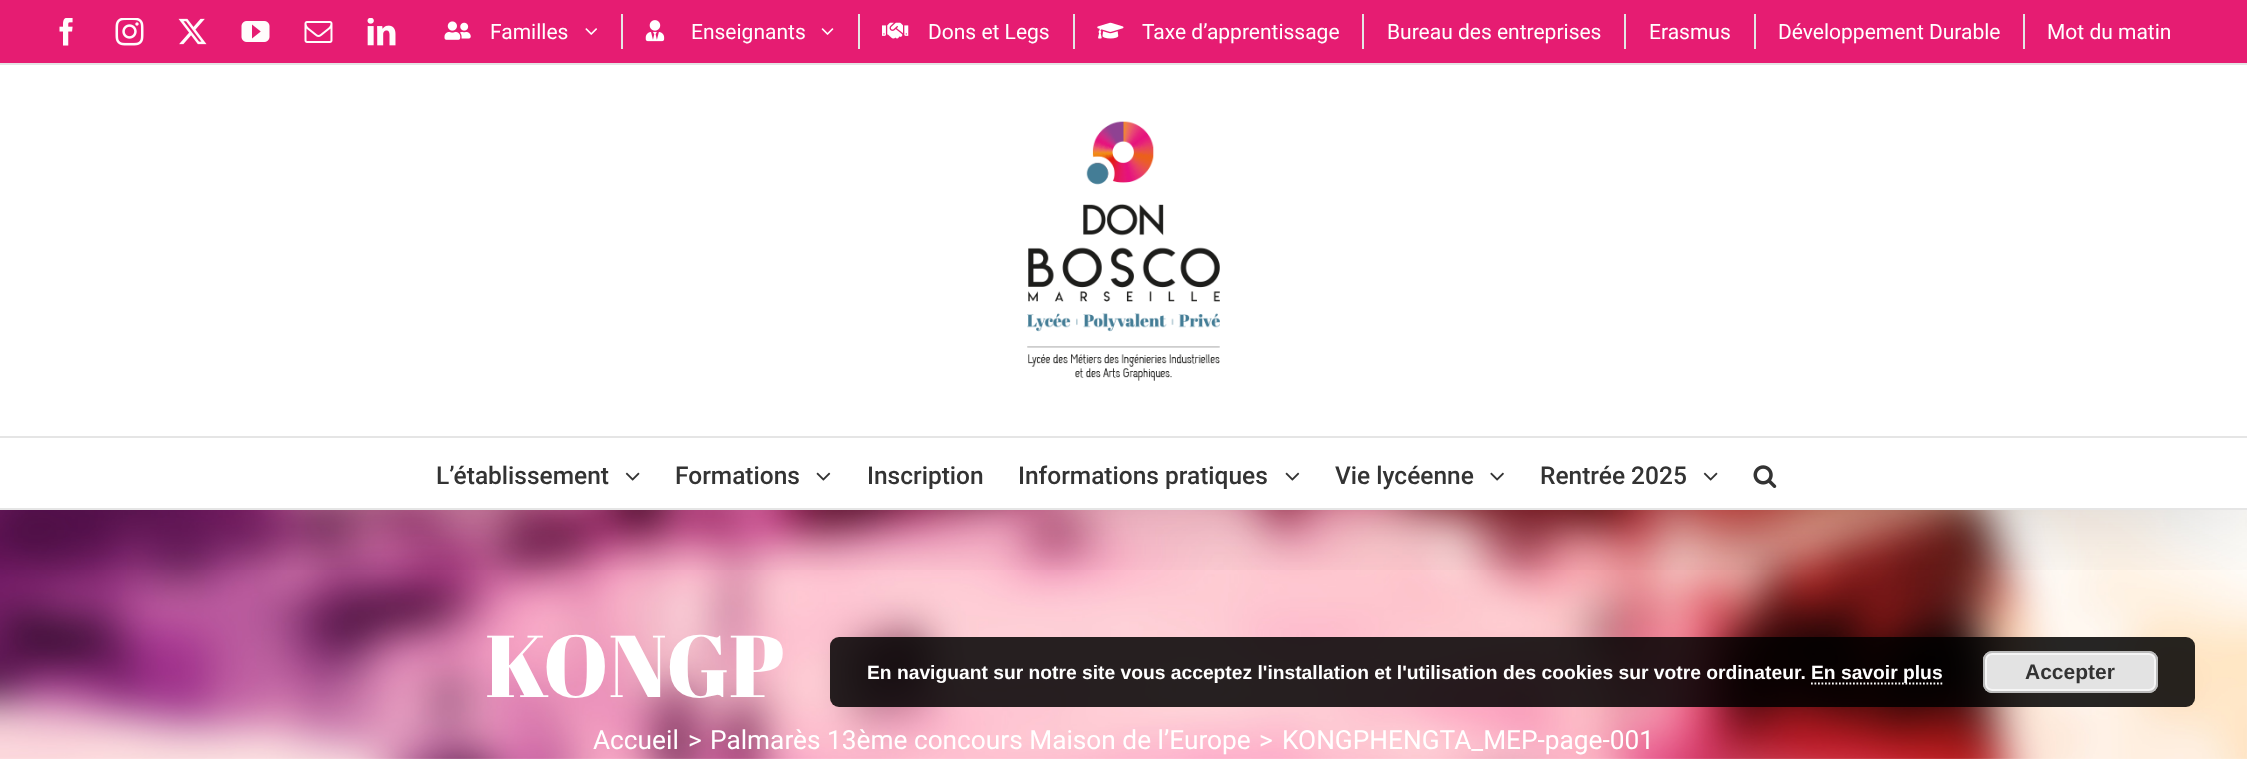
<svg xmlns="http://www.w3.org/2000/svg" width="2247" height="759">
<defs>
<clipPath id="clip1"><rect x="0" y="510" width="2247" height="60"/></clipPath>
</defs>
<rect width="100%" height="100%" fill="#fff"/>
<image x="0" y="510" width="2247" height="249" href="media/18.png"/>
<rect x="830" y="637" width="1365" height="70" rx="9" fill="#000000d9"/>
<rect x="1983" y="651" width="175" height="42" rx="9" fill="#e3e3e3"/>
<rect x="1986" y="654" width="169" height="36" rx="6" fill="none" stroke="#f6f6f6" stroke-width="2"/>
<rect x="1984" y="652" width="173" height="40" rx="8" fill="none" stroke="#bbb" stroke-width="2"/>
<g clip-path="url(#clip1)">
<rect x="4" y="21" width="2240" height="502" fill="#00000024" filter="blur(44px)"/>
</g>
<rect width="2247" height="63" fill="#e61c72"/>
<rect y="63" width="2247" height="2" fill="#e5e5e5"/>
<image x="59" y="18" width="14" height="28" href="media/1.png"/>
<image x="115" y="18" width="29" height="28" href="media/2.png"/>
<image x="178" y="18" width="29" height="27" href="media/3.png"/>
<image x="241" y="21" width="29" height="21" href="media/4.png"/>
<image x="304" y="21" width="29" height="22" href="media/5.png"/>
<image x="367" y="18" width="29" height="28" href="media/6.png"/>
<image x="444" y="21" width="27" height="19" href="media/7.png"/>
<text x="490" y="39" style="font-family:Roboto;font-size:21px;fill:#fff">Familles</text>
<image x="585" y="28" width="12" height="7" href="media/8.png"/>
<rect x="621" y="14" width="2" height="35" fill="#e5e5e5"/>
<image x="645" y="20" width="20" height="22" href="media/9.png"/>
<text x="691" y="39" style="font-family:Roboto;font-size:21px;fill:#fff">Enseignants</text>
<image x="821" y="28" width="13" height="7" href="media/10.png"/>
<rect x="858" y="14" width="2" height="35" fill="#e5e5e5"/>
<image x="882" y="22" width="27" height="17" href="media/11.png"/>
<text x="928" y="39" style="font-family:Roboto;font-size:21px;fill:#fff">Dons et Legs</text>
<rect x="1073" y="14" width="2" height="35" fill="#e5e5e5"/>
<image x="1097" y="22" width="27" height="17" href="media/12.png"/>
<text x="1142" y="39" style="font-family:Roboto;font-size:21px;fill:#fff">Taxe d’apprentissage</text>
<rect x="1362" y="14" width="2" height="35" fill="#e5e5e5"/>
<text x="1387" y="39" style="font-family:Roboto;font-size:21px;fill:#fff">Bureau des entreprises</text>
<rect x="1624" y="14" width="2" height="35" fill="#e5e5e5"/>
<text x="1649" y="39" style="font-family:Roboto;font-size:21px;fill:#fff">Erasmus</text>
<rect x="1754" y="14" width="2" height="35" fill="#e5e5e5"/>
<text x="1778" y="39" style="font-family:Roboto;font-size:21px;fill:#fff">Développement Durable</text>
<rect x="2023" y="14" width="2" height="35" fill="#e5e5e5"/>
<text x="2047" y="39" style="font-family:Roboto;font-size:21px;fill:#fff">Mot du matin</text>
<rect y="436" width="2247" height="2" fill="#e5e5e5"/>
<image x="1027" y="121" width="193" height="260" href="media/13.png"/>
<rect y="508" width="2247" height="2" fill="#e5e5e5"/>
<text x="436" y="484" style="font-family:Roboto;font-size:24.5px;font-weight:500;fill:#333">L’établissement</text>
<image x="625" y="472" width="15" height="9" href="media/14.png"/>
<text x="675" y="484" style="font-family:Roboto;font-size:24.5px;font-weight:500;fill:#333">Formations</text>
<image x="816" y="472" width="15" height="9" href="media/15.png"/>
<text x="867" y="484" style="font-family:Roboto;font-size:24.5px;font-weight:500;fill:#333">Inscription</text>
<text x="1018" y="484" style="font-family:Roboto;font-size:24.5px;font-weight:500;fill:#333">Informations pratiques</text>
<image x="1285" y="472" width="15" height="9" href="media/15.png"/>
<text x="1335" y="484" style="font-family:Roboto;font-size:24.5px;font-weight:500;fill:#333">Vie lycéenne</text>
<image x="1490" y="472" width="14" height="9" href="media/16.png"/>
<text x="1540" y="484" style="font-family:Roboto;font-size:24.5px;font-weight:500;fill:#333">Rentrée 2025</text>
<image x="1703" y="472" width="15" height="9" href="media/14.png"/>
<image x="1753" y="465" width="24" height="23" href="media/17.png"/>
<text x="485" y="697" style="font-family:Abril Fatface;font-size:87.5px;fill:#fff">KONGP</text>
<text x="593" y="749" style="font-family:Roboto;font-size:26.25px;fill:#fff">Accueil</text>
<text x="688" y="749" style="font-family:Roboto;font-size:26.25px;fill:#fff">&gt;</text>
<text x="710" y="749" style="font-family:Roboto;font-size:26.25px;fill:#fff">Palmarès 13ème concours Maison de l’Europe</text>
<text x="1259" y="749" style="font-family:Roboto;font-size:26.25px;fill:#fff">&gt;</text>
<text x="1282" y="749" style="font-family:Roboto;font-size:26.25px;fill:#fff">KONGPHENGTA_MEP-page-001</text>
<text x="867" y="679" style="font-family:Liberation Sans;font-size:19.25px;font-weight:bold;fill:#fff">En naviguant sur notre site vous acceptez l'installation et l'utilisation des cookies sur votre ordinateur.</text>
<path d="M1811 683.5h131.5" fill="none" stroke="#fff" stroke-width="1.8" stroke-dasharray="1.75 1.75"/>
<text x="1811" y="679" style="font-family:Liberation Sans;font-size:19.25px;font-weight:bold;fill:#fff">En savoir plus</text>
<text x="2025" y="679" style="font-family:Liberation Sans;font-size:21px;font-weight:bold;fill:#333">Accepter</text>
</svg>
